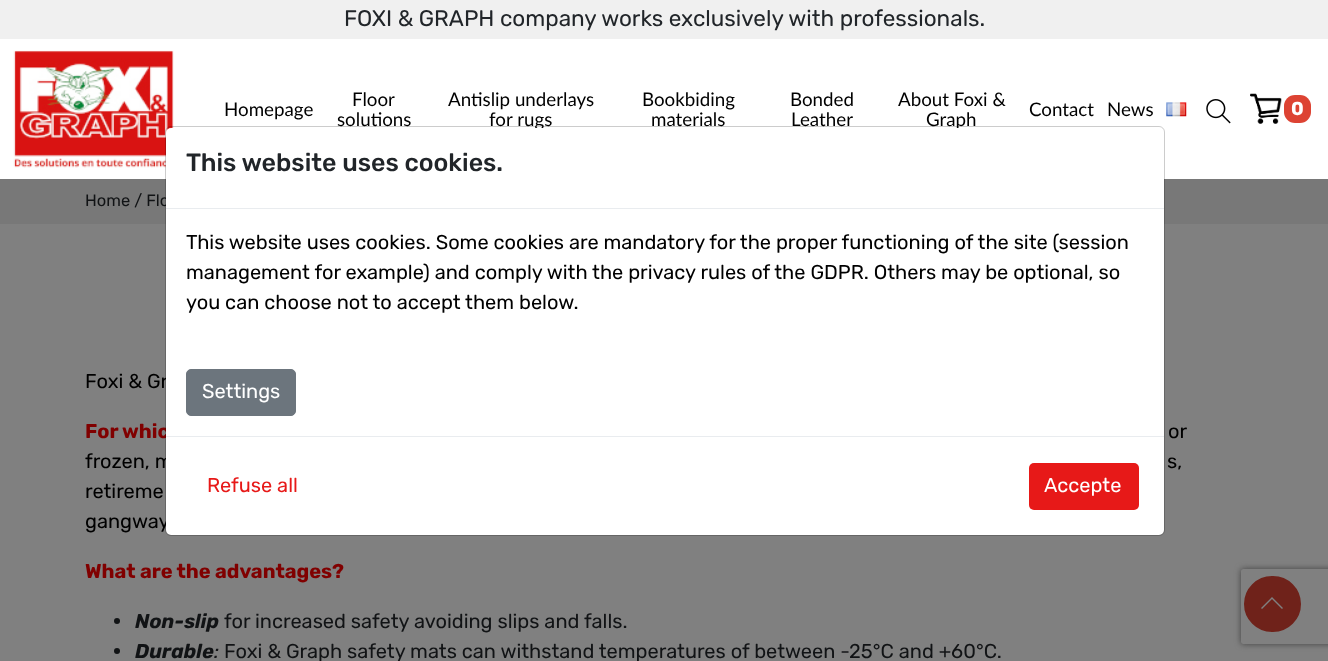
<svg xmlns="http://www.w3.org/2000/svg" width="1328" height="661">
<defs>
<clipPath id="clip1"><path d="M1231 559h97v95h-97zm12.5 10h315c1.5 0 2.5 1 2.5 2.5v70c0 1.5-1 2.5-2.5 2.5h-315c-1.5 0-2.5-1-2.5-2.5v-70c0-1.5 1-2.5 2.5-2.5z" clip-rule="evenodd"/></clipPath>
</defs>
<rect width="100%" height="100%" fill="#808080"/>
<rect y="39" width="1328" height="140" fill="#fff"/>
<rect width="1328" height="39" fill="#f0f0f0"/>
<text x="344" y="26" style="font-family:Rubik;font-size:22.5px;fill:#212529">FOXI &amp; GRAPH company works exclusively with professionals.</text>
<image x="13" y="50" width="161" height="118" href="media/1.png"/>
<text x="224" y="116" style="font-family:Lato;font-size:18.75px;fill:#000">Homepage</text>
<text x="352" y="106" style="font-family:Lato;font-size:18.75px;fill:#000">Floor</text>
<text x="337" y="126" style="font-family:Lato;font-size:18.75px;fill:#000">solutions</text>
<text x="448" y="106" style="font-family:Lato;font-size:18.75px;fill:#000">Antislip underlays</text>
<text x="489" y="126" style="font-family:Lato;font-size:18.75px;fill:#000">for rugs</text>
<text x="642" y="106" style="font-family:Lato;font-size:18.75px;fill:#000">Bookbiding</text>
<text x="651" y="126" style="font-family:Lato;font-size:18.75px;fill:#000">materials</text>
<text x="790" y="106" style="font-family:Lato;font-size:18.75px;fill:#000">Bonded</text>
<text x="791" y="126" style="font-family:Lato;font-size:18.75px;fill:#000">Leather</text>
<text x="898" y="106" style="font-family:Lato;font-size:18.75px;fill:#000">About Foxi &amp;</text>
<text x="926" y="126" style="font-family:Lato;font-size:18.75px;fill:#000">Graph</text>
<text x="1029" y="116" style="font-family:Lato;font-size:18.75px;fill:#000">Contact</text>
<text x="1107" y="116" style="font-family:Lato;font-size:18.75px;fill:#000">News</text>
<image x="1166" y="102" width="21" height="15" href="media/2.png"/>
<image x="1206" y="99" width="25" height="25" href="media/3.png"/>
<image x="1250" y="93" width="32" height="31" href="media/4.png"/>
<rect x="1284" y="95" width="27" height="28" rx="11" fill="#dd4333"/>
<text x="1291" y="115" style="font-family:Rubik;font-size:18.75px;font-weight:bold;fill:#fff">0</text>
<rect y="179" width="1328" height="45" fill="#787878"/>
<text x="85" y="206" style="font-family:Rubik;font-size:16.5px;fill:#111315">Home / Flo</text>
<text x="85" y="388" style="font-family:Rubik;font-size:20px;fill:#000">Foxi &amp; Gr</text>
<text x="85" y="438" style="font-family:Rubik;font-size:20px;font-weight:bold;fill:#800000">For whic</text>
<text x="85" y="468" style="font-family:Rubik;font-size:20px;fill:#000">frozen, m</text>
<text x="85" y="528" style="font-family:Rubik;font-size:20px;fill:#000">gangway</text>
<rect x="166" y="128" width="998" height="407" rx="5" fill="#fff"/>
<rect x="165.5" y="126.5" width="999" height="409" rx="5.5" fill="none" stroke="#00000033"/>
<rect x="166" y="208" width="998" height="1" fill="#e9ecef"/>
<text x="186" y="171" style="font-family:Rubik;font-size:25px;font-weight:500;fill:#212529">This website uses cookies.</text>
<text x="186" y="249" style="font-family:Rubik;font-size:20px;fill:#000">This website uses cookies. Some cookies are mandatory for the proper functioning of the site (session</text>
<text x="186" y="279" style="font-family:Rubik;font-size:20px;fill:#000">management for example) and comply with the privacy rules of the GDPR. Others may be optional, so</text>
<text x="186" y="309" style="font-family:Rubik;font-size:20px;fill:#000">you can choose not to accept them below.</text>
<rect x="186.5" y="369.5" width="109" height="46" rx="4.5" fill="#6c757d" stroke="#6c757d"/>
<text x="202" y="398" style="font-family:Rubik;font-size:20px;fill:#fff">Settings</text>
<rect x="166" y="436" width="998" height="1" fill="#e9ecef"/>
<text x="207" y="492" style="font-family:Rubik;font-size:20px;fill:#e71918">Refuse all</text>
<rect x="1029" y="463" width="110" height="47" rx="5" fill="#e71918"/>
<text x="1044" y="492" style="font-family:Rubik;font-size:20px;fill:#fff">Accepte</text>
<text x="1168" y="438" style="font-family:Rubik;font-size:20px;fill:#000">or</text>
<text x="1167" y="468" style="font-family:Rubik;font-size:20px;fill:#000">s,</text>
<text x="85" y="498" style="font-family:Rubik;font-size:20px;fill:#000">retireme</text>
<text x="85" y="578" style="font-family:Rubik;font-size:20px;font-weight:bold;fill:#800000">What are the advantages?</text>
<circle cx="117" cy="621" r="3" fill="#111315"/>
<text x="135" y="628" style="font-family:Rubik;font-size:20px;font-weight:bold;font-style:italic;fill:#111315">Non-slip</text>
<text x="224" y="628" style="font-family:Rubik;font-size:20px;fill:#111315">for increased safety avoiding slips and falls.</text>
<circle cx="117" cy="651" r="3" fill="#111315"/>
<text x="135" y="658" style="font-family:Rubik;font-size:20px;font-weight:bold;font-style:italic;fill:#111315">Durable</text>
<text x="214" y="658" style="font-family:Rubik;font-size:20px;font-style:italic;fill:#111315">:</text>
<text x="224" y="658" style="font-family:Rubik;font-size:20px;fill:#111315">Foxi &amp; Graph safety mats can withstand temperatures of between -25°C and +60°C.</text>
<g clip-path="url(#clip1)">
<rect x="1241" y="569" width="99" height="75" rx="2.5" fill="#404040" filter="blur(3px)"/>
</g>
<rect x="1242.5" y="574.5" width="60" height="59" rx="29.5" fill="#6f221a" stroke="#808080" stroke-width="3"/>
<path d="M1283 608l-1 1l-10-10l-10 10l-1-1l11-11z" fill="#808080"/>
</svg>
